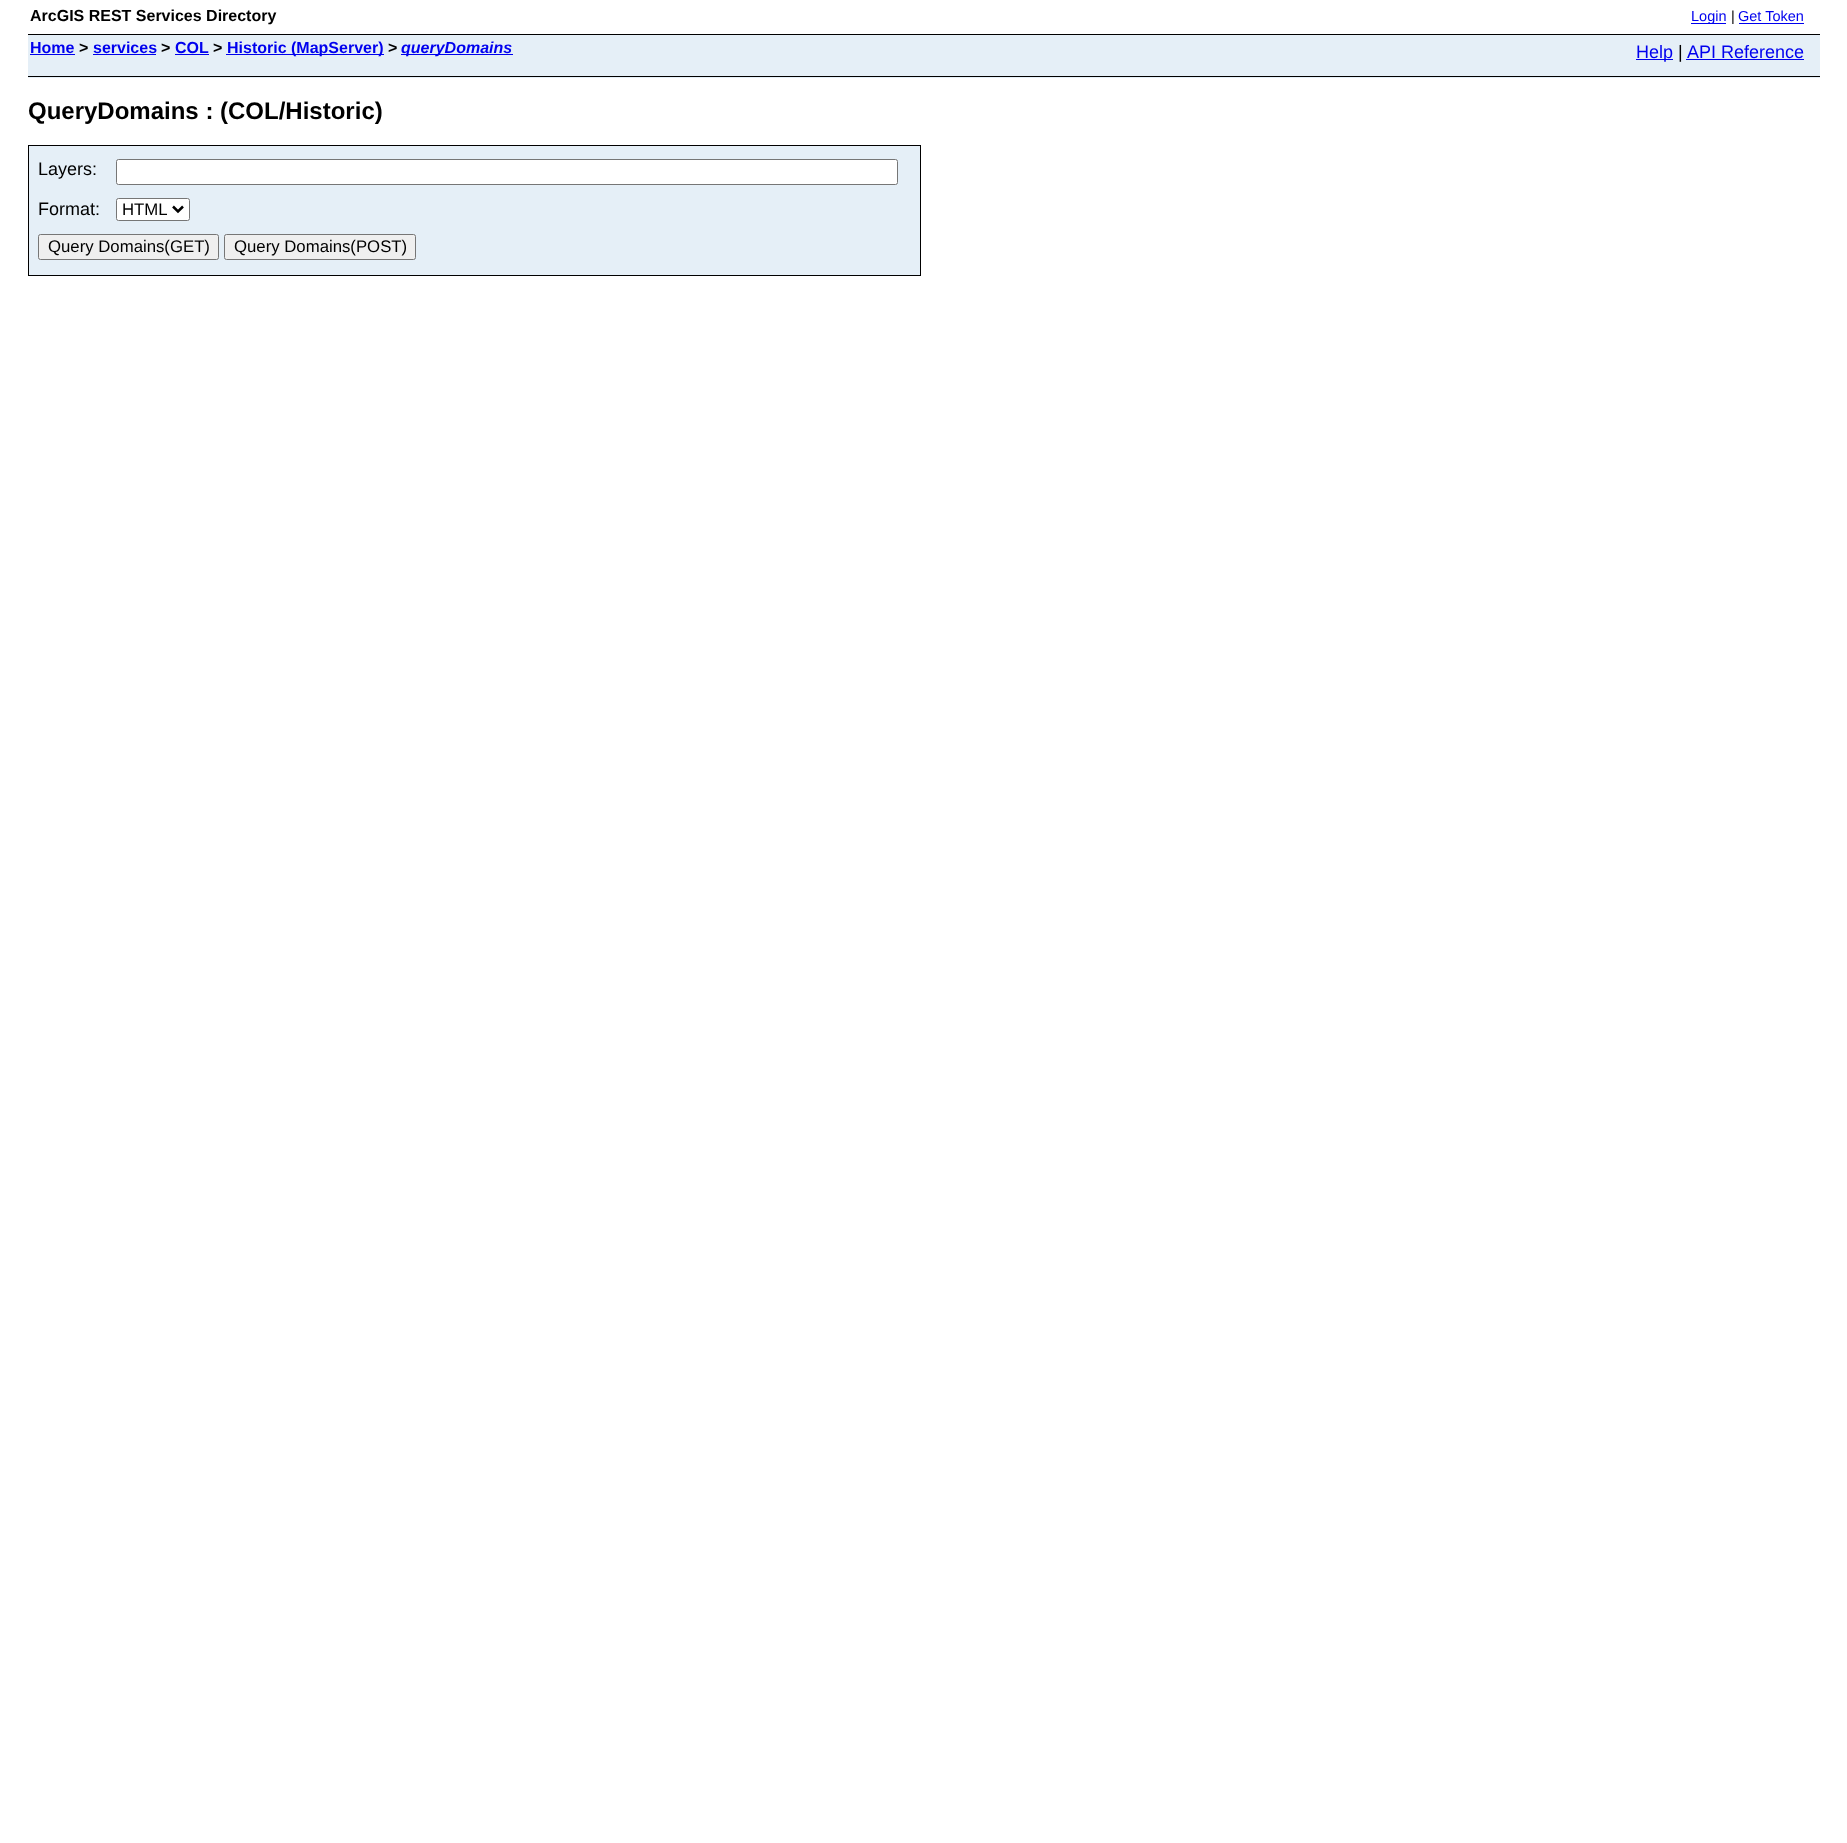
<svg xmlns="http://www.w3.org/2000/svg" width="1847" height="1843">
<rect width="100%" height="100%" fill="#fff"/>
<text x="30" y="21" style="font-family:Liberation Sans;font-size:16px;font-weight:bold;fill:#000">ArcGIS REST Services Directory</text>
<rect x="1691" y="23" width="35" height="1" fill="#00e"/>
<text x="1691" y="21" style="font-family:Liberation Sans;font-size:14.5px;fill:#00e">Login</text>
<text x="1731" y="21" style="font-family:Liberation Sans;font-size:14.5px;fill:#000">|</text>
<text x="1738" y="21" style="font-family:Liberation Sans;font-size:14.5px;fill:#00e">Get Token</text>
<rect x="1739" y="23" width="65" height="1" fill="#00e"/>
<rect x="28" y="35" width="1792" height="43" fill="#e5eff7"/>
<rect x="28" y="34" width="1792" height="1" fill="#000"/>
<rect x="28" y="76" width="1792" height="1" fill="#000"/>
<text x="30" y="53" style="font-family:Liberation Sans;font-size:16px;font-weight:bold;fill:#00e">Home</text>
<rect x="30" y="54" width="45" height="1" fill="#00e"/>
<text x="79" y="53" style="font-family:Liberation Sans;font-size:16px;font-weight:bold;fill:#000">&gt;</text>
<text x="93" y="53" style="font-family:Liberation Sans;font-size:16px;font-weight:bold;fill:#00e">services</text>
<rect x="93" y="54" width="63" height="1" fill="#00e"/>
<text x="161" y="53" style="font-family:Liberation Sans;font-size:16px;font-weight:bold;fill:#000">&gt;</text>
<text x="175" y="53" style="font-family:Liberation Sans;font-size:16px;font-weight:bold;fill:#00e">COL</text>
<rect x="175" y="54" width="34" height="1" fill="#00e"/>
<text x="213" y="53" style="font-family:Liberation Sans;font-size:16px;font-weight:bold;fill:#000">&gt;</text>
<rect x="226" y="54" width="158" height="1" fill="#00e"/>
<text x="227" y="53" style="font-family:Liberation Sans;font-size:16px;font-weight:bold;fill:#00e">Historic (MapServer)</text>
<text x="388" y="53" style="font-family:Liberation Sans;font-size:16px;font-weight:bold;fill:#000">&gt;</text>
<rect x="401" y="54" width="112" height="1" fill="#00e"/>
<text x="401" y="53" style="font-family:Liberation Sans;font-size:16px;font-weight:bold;font-style:italic;fill:#00e">queryDomains</text>
<rect x="1636" y="59" width="37" height="1" fill="#00e"/>
<text x="1636" y="58" style="font-family:Liberation Sans;font-size:18px;fill:#00e">Help</text>
<text x="1678" y="58" style="font-family:Liberation Sans;font-size:18px;fill:#000">|</text>
<text x="1687" y="58" style="font-family:Liberation Sans;font-size:18px;fill:#00e">API Reference</text>
<rect x="1686" y="59" width="118" height="1" fill="#00e"/>
<text x="28" y="119" style="font-family:Liberation Sans;font-size:24px;font-weight:bold;fill:#000">QueryDomains : (COL/Historic)</text>
<rect x="28.5" y="145.5" width="892" height="130" fill="#e5eff7" stroke="#000"/>
<text x="38" y="175" style="font-family:Liberation Sans;font-size:18px;fill:#000">Layers:</text>
<rect x="116.5" y="159.5" width="781" height="25" rx="2" fill="#fff" stroke="#767676"/>
<text x="38" y="215" style="font-family:Liberation Sans;font-size:18px;fill:#000">Format:</text>
<rect x="116.5" y="198.5" width="73" height="22" rx="2" fill="#fff" stroke="#767676"/>
<path d="M173 206.5l5 5l5-5" fill="none" stroke="#000" stroke-width="2.5"/>
<text x="122" y="215" style="font-family:Liberation Sans;font-size:16.75px;fill:#000">HTML</text>
<rect x="38.5" y="234.5" width="180" height="25" rx="2" fill="#efefef" stroke="#767676"/>
<text x="48" y="252" style="font-family:Liberation Sans;font-size:16.75px;fill:#000">Query Domains(GET)</text>
<rect x="224.5" y="234.5" width="191" height="25" rx="2" fill="#efefef" stroke="#767676"/>
<text x="234" y="252" style="font-family:Liberation Sans;font-size:16.75px;fill:#000">Query Domains(POST)</text>
</svg>
